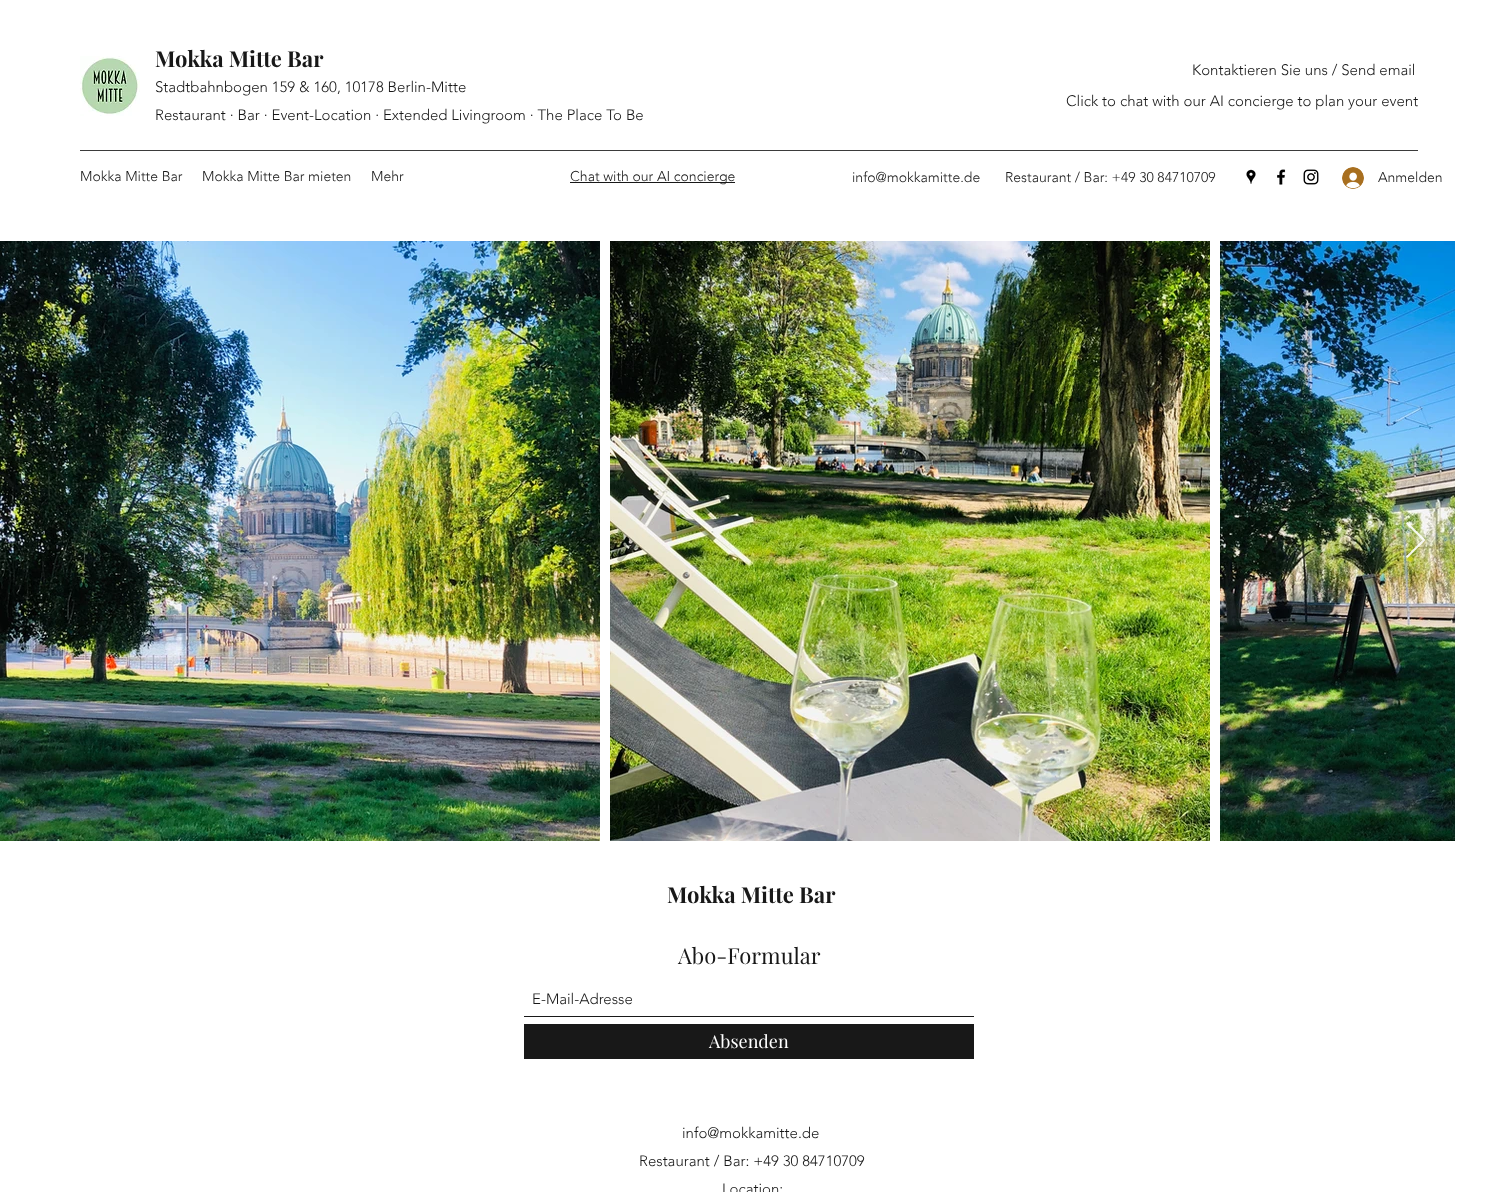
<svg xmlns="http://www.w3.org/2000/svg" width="1498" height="1192">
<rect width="100%" height="100%" fill="#fff"/>
<image x="80" y="56" width="60" height="60" href="media/1.png"/>
<text x="155" y="67" style="font-family:Playfair Display;font-size:22px;font-weight:bold;fill:#181818">Mokka Mitte Bar</text>
<text x="155" y="92" style="font-family:'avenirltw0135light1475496';font-size:15px;font-weight:300;fill:#181818">Stadtbahnbogen 159 &amp; 160, 10178 Berlin-Mitte</text>
<text x="155" y="120" style="font-family:'avenirltw0135light1475496';font-size:15px;font-weight:300;fill:#181818">Restaurant · Bar · Event-Location · Extended Livingroom · The Place To Be</text>
<text x="1192" y="75" style="font-family:'avenirltw0135light1475496';font-size:15px;font-weight:300;fill:#181818">Kontaktieren Sie uns / Send email</text>
<text x="1066" y="106" style="font-family:'avenirltw0135light1475496';font-size:15px;font-weight:300;fill:#181818">Click to chat with our AI concierge to plan your event</text>
<rect x="80" y="150" width="1338" height="1" fill="#3b3b3b"/>
<text x="80" y="181" style="font-family:'avenirltw0135light1475496';font-size:14px;font-weight:300;fill:#181818">Mokka Mitte Bar</text>
<text x="202" y="181" style="font-family:'avenirltw0135light1475496';font-size:14px;font-weight:300;fill:#181818">Mokka Mitte Bar mieten</text>
<text x="371" y="181" style="font-family:'avenirltw0135light1475496';font-size:14px;font-weight:300;fill:#181818">Mehr</text>
<rect x="570" y="182" width="165" height="1" fill="#181818"/>
<text x="570" y="181" style="font-family:'avenirltw0135light1475496';font-size:14px;font-weight:300;fill:#181818">Chat with our AI concierge</text>
<text x="852" y="182" style="font-family:'avenirltw0135light1475496';font-size:14px;font-weight:300;fill:#181818">info@mokkamitte.de</text>
<text x="1005" y="182" style="font-family:'avenirltw0135light1475496';font-size:14px;font-weight:300;fill:#181818">Restaurant / Bar: +49 30 84710709</text>
<image x="1246" y="169" width="10" height="15" href="media/2.png"/>
<image x="1277" y="169" width="9" height="16" href="media/3.png"/>
<image x="1303" y="169" width="16" height="16" href="media/4.png"/>
<image x="1342" y="167" width="22" height="22" href="media/5.png"/>
<text x="1378" y="182" style="font-family:'avenirltw0135light1475496';font-size:14px;font-weight:300;fill:#181818">Anmelden</text>
<image x="0" y="241" width="600" height="600" href="media/6.png"/>
<image x="610" y="241" width="600" height="600" href="media/7.png"/>
<image x="1220" y="241" width="235" height="600" href="media/8.png"/>
<path d="M1406 523.5l1.5-1.5l18 18l-18 18l-1.5-1.5l16.5-16.5z" fill="#ffffffe6"/>
<text x="667" y="903" style="font-family:Playfair Display;font-size:22px;font-weight:bold;fill:#181818">Mokka Mitte Bar</text>
<text x="678" y="964" style="font-family:Playfair Display;font-size:22px;fill:#181818">Abo-Formular</text>
<rect x="524" y="1016" width="450" height="1" fill="#181818"/>
<text x="532" y="1004" style="font-family:'avenirltw0135light1475496';font-size:15px;font-weight:300;fill:#181818">E-Mail-Adresse</text>
<rect x="524" y="1024" width="450" height="35" fill="#181818"/>
<text x="709" y="1048" style="font-family:Playfair Display;font-size:18px;fill:#fff">Absenden</text>
<text x="682" y="1138" style="font-family:'avenirltw0135light1475496';font-size:15px;font-weight:300;fill:#181818">info@mokkamitte.de</text>
<text x="639" y="1166" style="font-family:'avenirltw0135light1475496';font-size:15px;font-weight:300;fill:#181818">Restaurant / Bar: +49 30 84710709</text>
<text x="722" y="1194" style="font-family:'avenirltw0135light1475496';font-size:15px;font-weight:300;fill:#181818">Location:</text>
</svg>
